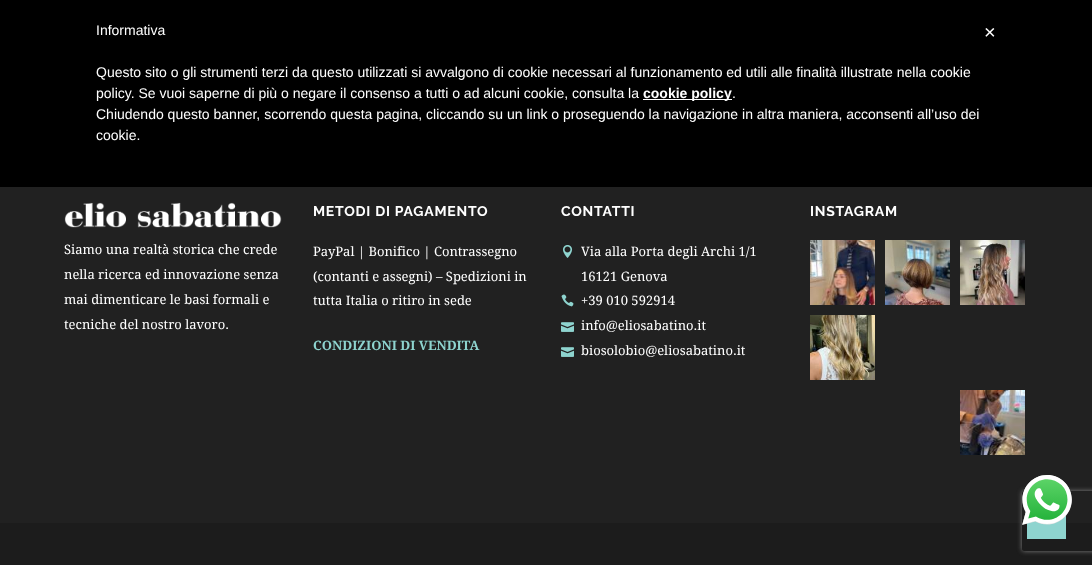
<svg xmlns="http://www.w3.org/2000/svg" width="1092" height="565">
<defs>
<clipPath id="clip1"><path d="M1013 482h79v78h-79zm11 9h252c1 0 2 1 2 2v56c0 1-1 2-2 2h-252c-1 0-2-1-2-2v-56c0-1 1-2 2-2z" clip-rule="evenodd"/></clipPath>
</defs>
<rect width="100%" height="100%" fill="#212121"/>
<rect width="1092" height="187" fill="#000"/>
<text x="96" y="35" style="font-family:Liberation Sans;font-size:14px;fill:#fff">Informativa</text>
<text x="96" y="77" style="font-family:Liberation Sans;font-size:14px;fill:#fff">Questo sito o gli strumenti terzi da questo utilizzati si avvalgono di cookie necessari al funzionamento ed utili alle finalità illustrate nella cookie</text>
<text x="96" y="98" style="font-family:Liberation Sans;font-size:14px;fill:#fff">policy. Se vuoi saperne di più o negare il consenso a tutti o ad alcuni cookie, consulta la</text>
<rect x="643" y="99" width="89" height="1" fill="#fff"/>
<text x="643" y="98" style="font-family:Liberation Sans;font-size:14px;font-weight:bold;fill:#fff">cookie policy</text>
<text x="732" y="98" style="font-family:Liberation Sans;font-size:14px;fill:#fff">.</text>
<text x="96" y="119" style="font-family:Liberation Sans;font-size:14px;fill:#fff">Chiudendo questo banner, scorrendo questa pagina, cliccando su un link o proseguendo la navigazione in altra maniera, acconsenti all’uso dei</text>
<text x="96" y="140" style="font-family:Liberation Sans;font-size:14px;fill:#fff">cookie.</text>
<text x="984" y="39" style="font-family:Liberation Sans;font-size:20px;fill:#fff">×</text>
<text x="313" y="216" style="font-family:Raleway;font-size:14px;font-weight:bold;letter-spacing:0.75px;fill:#fff">METODI DI PAGAMENTO</text>
<text x="313" y="256" style="font-family:Droid Serif;font-size:13px;fill:#fff">PayPal | Bonifico | Contrassegno</text>
<text x="313" y="281" style="font-family:Droid Serif;font-size:13px;fill:#fff">(contanti e assegni) – Spedizioni in</text>
<text x="313" y="305" style="font-family:Droid Serif;font-size:13px;fill:#fff">tutta Italia o ritiro in sede</text>
<text x="313" y="350" style="font-family:Droid Serif;font-size:13px;font-weight:bold;fill:#8ed4cf">CONDIZIONI DI VENDITA</text>
<text x="561" y="216" style="font-family:Raleway;font-size:14px;font-weight:bold;letter-spacing:0.75px;fill:#fff">CONTATTI</text>
<image x="562" y="245" width="11" height="13" href="media/1.png"/>
<text x="581" y="256" style="font-family:Droid Serif;font-size:13px;fill:#fff">Via alla Porta degli Archi 1/1</text>
<text x="581" y="281" style="font-family:Droid Serif;font-size:13px;fill:#fff">16121 Genova</text>
<image x="561" y="294" width="13" height="13" href="media/2.png"/>
<text x="581" y="305" style="font-family:Droid Serif;font-size:13px;fill:#fff">+39 010 592914</text>
<image x="561" y="322" width="13" height="10" href="media/3.png"/>
<text x="581" y="330" style="font-family:Droid Serif;font-size:13px;fill:#fff">info@eliosabatino.it</text>
<image x="561" y="347" width="13" height="10" href="media/3.png"/>
<text x="581" y="355" style="font-family:Droid Serif;font-size:13px;fill:#fff">biosolobio@eliosabatino.it</text>
<text x="810" y="216" style="font-family:Raleway;font-size:14px;font-weight:bold;letter-spacing:0.75px;fill:#fff">INSTAGRAM</text>
<image x="810" y="240" width="65" height="65" href="media/4.png"/>
<image x="885" y="240" width="65" height="65" href="media/5.png"/>
<image x="960" y="240" width="65" height="65" href="media/6.png"/>
<image x="810" y="315" width="65" height="65" href="media/7.png"/>
<image x="960" y="390" width="65" height="65" href="media/8.png"/>
<image x="64" y="202" width="218" height="26" href="media/9.png"/>
<text x="64" y="254" style="font-family:Droid Serif;font-size:13px;fill:#fff">Siamo una realtà storica che crede</text>
<text x="64" y="279" style="font-family:Droid Serif;font-size:13px;fill:#fff">nella ricerca ed innovazione senza</text>
<text x="64" y="304" style="font-family:Droid Serif;font-size:13px;fill:#fff">mai dimenticare le basi formali e</text>
<text x="64" y="329" style="font-family:Droid Serif;font-size:13px;fill:#fff">tecniche del nostro lavoro.</text>
<rect y="523" width="1092" height="42" fill="#1c1c1c"/>
<g clip-path="url(#clip1)">
<rect x="1022" y="491" width="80" height="60" rx="2" fill="#808080" filter="blur(2.5px)"/>
</g>
<rect x="1027" y="515" width="39" height="24" fill="#8ed4cf"/>
<image x="1022" y="475" width="50" height="50" href="media/10.png"/>
</svg>
